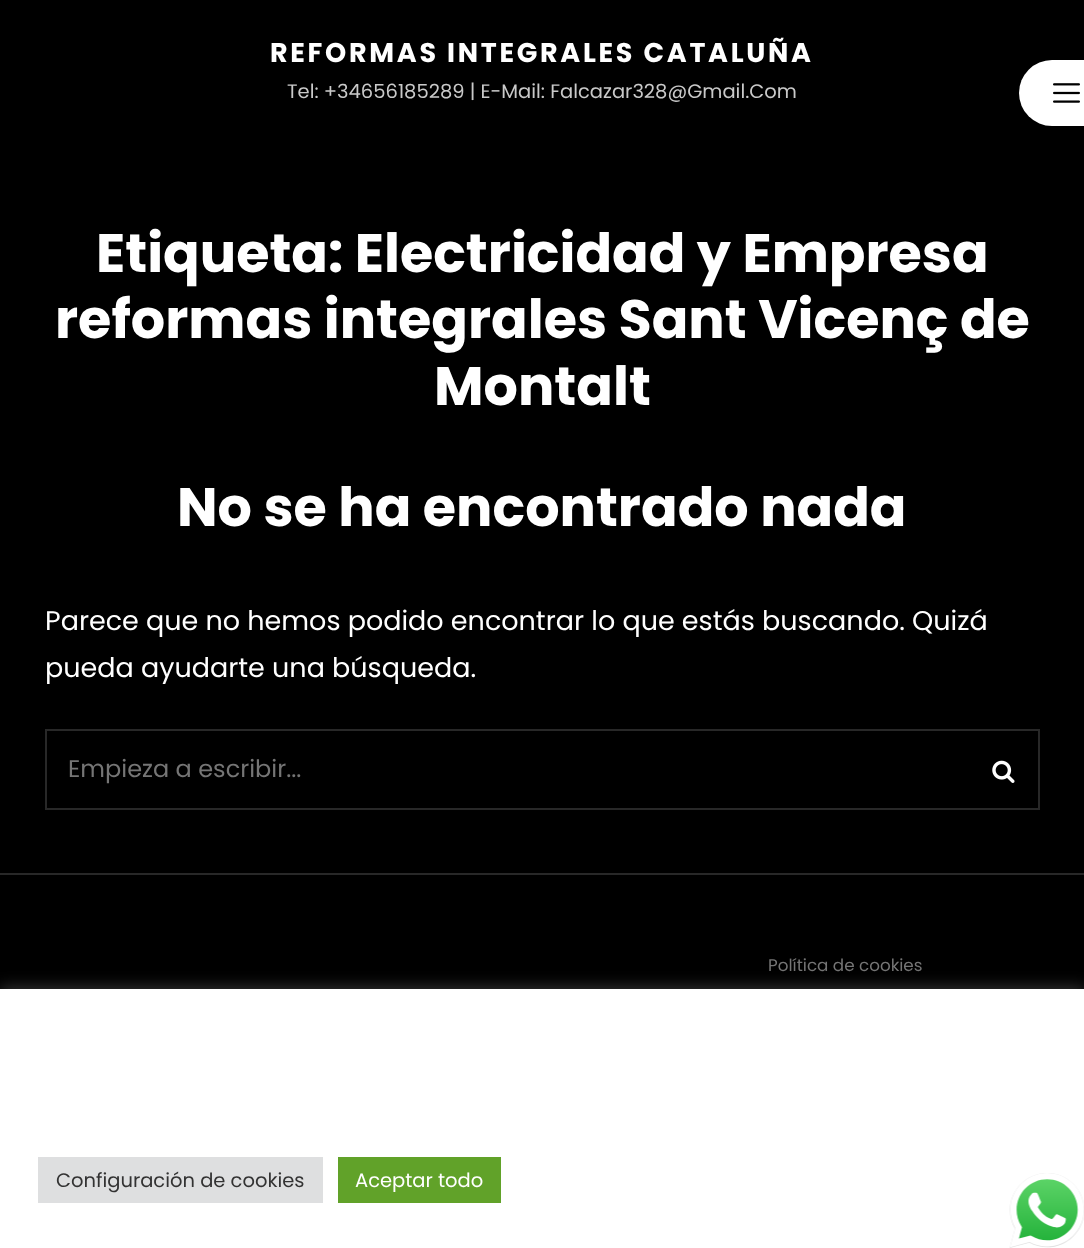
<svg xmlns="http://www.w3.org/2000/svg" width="1084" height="1248">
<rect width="100%" height="100%" fill="#000"/>
<text x="270" y="62" style="font-family:Poppins;font-size:27px;font-weight:bold;letter-spacing:2.7px;fill:#fff">REFORMAS INTEGRALES CATALUÑA</text>
<text x="287" y="98" style="font-family:Poppins;font-size:19.5px;fill:#c9c9c9">Tel: +34656185289 | E-Mail: Falcazar328@Gmail.Com</text>
<rect x="1019" y="60" width="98" height="66" rx="33" fill="#fff"/>
<image x="1053" y="83" width="27" height="20" href="media/1.png"/>
<text x="96" y="272" style="font-family:Poppins;font-size:54px;font-weight:bold;fill:#fff">Etiqueta: Electricidad y Empresa</text>
<text x="55" y="338" style="font-family:Poppins;font-size:54px;font-weight:bold;fill:#fff">reformas integrales Sant Vicenç de</text>
<text x="434" y="405" style="font-family:Poppins;font-size:54px;font-weight:bold;fill:#fff">Montalt</text>
<text x="177" y="526" style="font-family:Poppins;font-size:54px;font-weight:bold;fill:#fff">No se ha encontrado nada</text>
<text x="45" y="630" style="font-family:Poppins;font-size:27px;fill:#fff">Parece que no hemos podido encontrar lo que estás buscando. Quizá</text>
<text x="45" y="677" style="font-family:Poppins;font-size:27px;fill:#fff">pueda ayudarte una búsqueda.</text>
<rect x="46" y="730" width="993" height="79" fill="none" stroke="#282828" stroke-width="2"/>
<text x="68" y="777" style="font-family:Poppins;font-size:24px;fill:#757575">Empieza a escribir...</text>
<image x="992" y="760" width="23" height="23" href="media/2.png"/>
<rect y="873" width="1084" height="2" fill="#282828"/>
<text x="768" y="971" style="font-family:Poppins;font-size:16.75px;fill:#757575">Política de cookies</text>
<rect y="987" width="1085" height="260" fill="#acabab4d" filter="blur(7.5px)"/>
<rect y="989" width="1084" height="259" fill="#fff"/>
<rect x="38" y="1157" width="285" height="46" fill="#dedfe0"/>
<text x="56" y="1187" style="font-family:Poppins;font-size:19.5px;fill:#333">Configuración de cookies</text>
<rect x="338" y="1157" width="163" height="46" fill="#61a229"/>
<text x="355" y="1187" style="font-family:Poppins;font-size:19.5px;fill:#fff">Aceptar todo</text>
<image x="1009" y="1173" width="75" height="75" href="media/3.png"/>
</svg>
